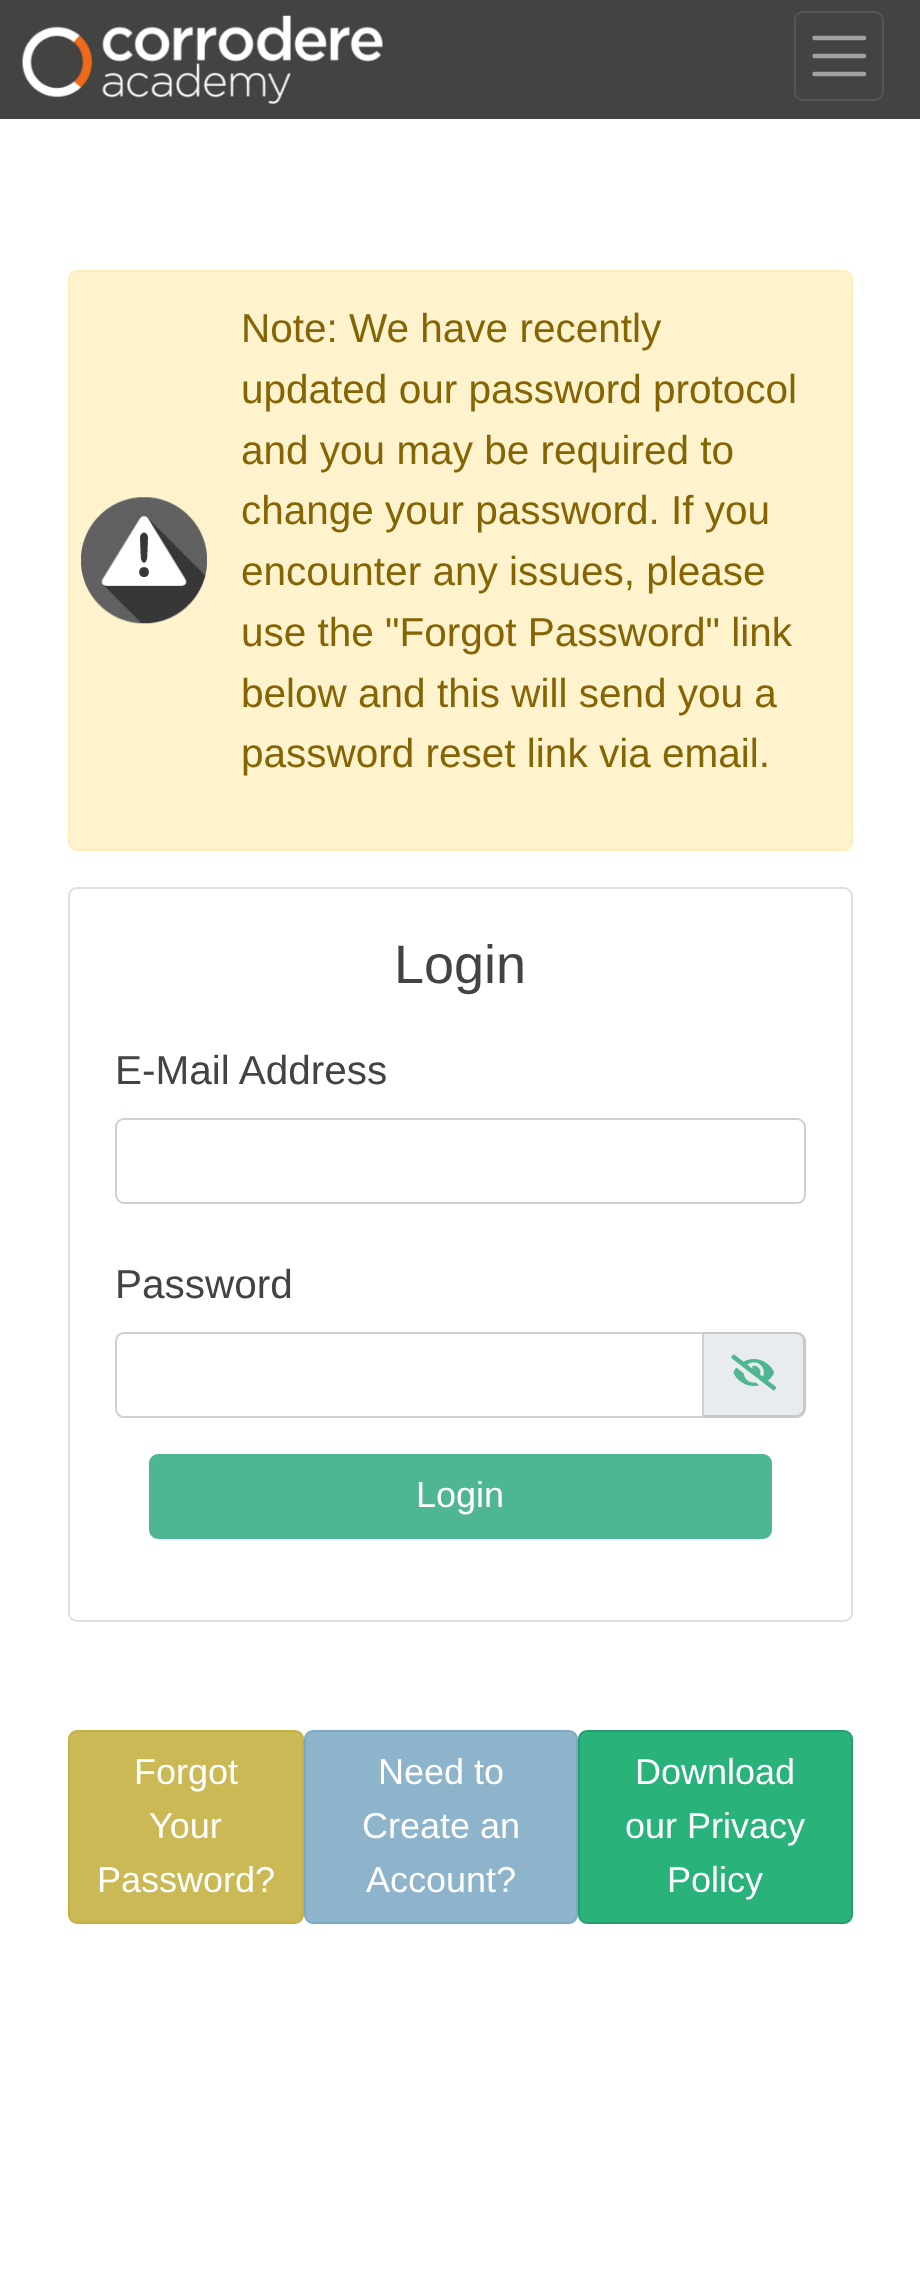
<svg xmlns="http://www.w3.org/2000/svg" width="920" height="2291">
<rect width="100%" height="100%" fill="#fff"/>
<rect width="920" height="119" fill="#434342"/>
<image x="22" y="15" width="361" height="89" href="media/1.png"/>
<rect x="795" y="12" width="88" height="88" rx="8" fill="none" stroke="#565655" stroke-width="2"/>
<path d="M814.5 38h49.5m-49.5 18h49.5m-49.5 18h49.5" fill="none" stroke="#a1a1a1" stroke-width="4.5" stroke-linecap="round"/>
<rect x="69" y="271" width="783" height="579" rx="8" fill="#fff3cd" stroke="#ffeeba" stroke-width="2"/>
<image x="81" y="497" width="126" height="127" href="media/2.png"/>
<text x="241" y="342" style="font-family:Arimo;font-size:40.5px;fill:#856404">Note: We have recently</text>
<text x="241" y="403" style="font-family:Arimo;font-size:40.5px;fill:#856404">updated our password protocol</text>
<text x="241" y="464" style="font-family:Arimo;font-size:40.5px;fill:#856404">and you may be required to</text>
<text x="241" y="524" style="font-family:Arimo;font-size:40.5px;fill:#856404">change your password. If you</text>
<text x="241" y="585" style="font-family:Arimo;font-size:40.5px;fill:#856404">encounter any issues, please</text>
<text x="241" y="646" style="font-family:Arimo;font-size:40.5px;fill:#856404">use the "Forgot Password" link</text>
<text x="241" y="707" style="font-family:Arimo;font-size:40.5px;fill:#856404">below and this will send you a</text>
<text x="241" y="767" style="font-family:Arimo;font-size:40.5px;fill:#856404">password reset link via email.</text>
<rect x="69" y="888" width="783" height="733" rx="8" fill="none" stroke="#dfdfdf" stroke-width="2"/>
<text x="394" y="983" style="font-family:Arimo;font-size:54px;fill:#434342">Login</text>
<text x="115" y="1084" style="font-family:Arimo;font-size:40.5px;fill:#434342">E-Mail Address</text>
<rect x="116" y="1119" width="689" height="84" rx="8" fill="none" stroke="#ccd0d2" stroke-width="2"/>
<text x="115" y="1298" style="font-family:Arimo;font-size:40.5px;fill:#434342">Password</text>
<path d="M124 1333h579v84h-579c-4.5 0-8-3.5-8-8v-68c0-4.5 3.5-8 8-8z" fill="none" stroke="#ccd0d2" stroke-width="2"/>
<path d="M704 1332h93c5 0 9 4 9 9v68c0 5-4 9-9 9h-93z" fill="#e9ecef"/>
<path d="M704 1332h92c5 0 10 4 10 9v67c0 5-5 10-10 10h-92zm0 2h92c4 0 7 3 7 7v67c0 4-3 7-7 7h-92z" fill="#00000026" fill-rule="evenodd"/>
<image x="731" y="1354" width="46" height="37" href="media/3.png"/>
<rect x="150" y="1455" width="621" height="83" rx="8" fill="#4eb692" stroke="#4eb692" stroke-width="2"/>
<text x="416" y="1507" style="font-family:Arimo;font-size:36px;fill:#fff">Login</text>
<rect x="69" y="1731" width="234" height="192" rx="8" fill="#cbb956" stroke="#c5b143" stroke-width="2"/>
<text x="134" y="1784" style="font-family:Arimo;font-size:36px;fill:#fff">Forgot</text>
<text x="149" y="1838" style="font-family:Arimo;font-size:36px;fill:#fff">Your</text>
<text x="97" y="1892" style="font-family:Arimo;font-size:36px;fill:#fff">Password?</text>
<rect x="305" y="1731" width="272" height="192" rx="8" fill="#8eb4cb" stroke="#7da8c3" stroke-width="2"/>
<text x="378" y="1784" style="font-family:Arimo;font-size:36px;fill:#fff">Need to</text>
<text x="362" y="1838" style="font-family:Arimo;font-size:36px;fill:#fff">Create an</text>
<text x="366" y="1892" style="font-family:Arimo;font-size:36px;fill:#fff">Account?</text>
<rect x="579" y="1731" width="273" height="192" rx="8" fill="#2ab27b" stroke="#259d6d" stroke-width="2"/>
<text x="635" y="1784" style="font-family:Arimo;font-size:36px;fill:#fff">Download</text>
<text x="625" y="1838" style="font-family:Arimo;font-size:36px;fill:#fff">our Privacy</text>
<text x="667" y="1892" style="font-family:Arimo;font-size:36px;fill:#fff">Policy</text>
</svg>
